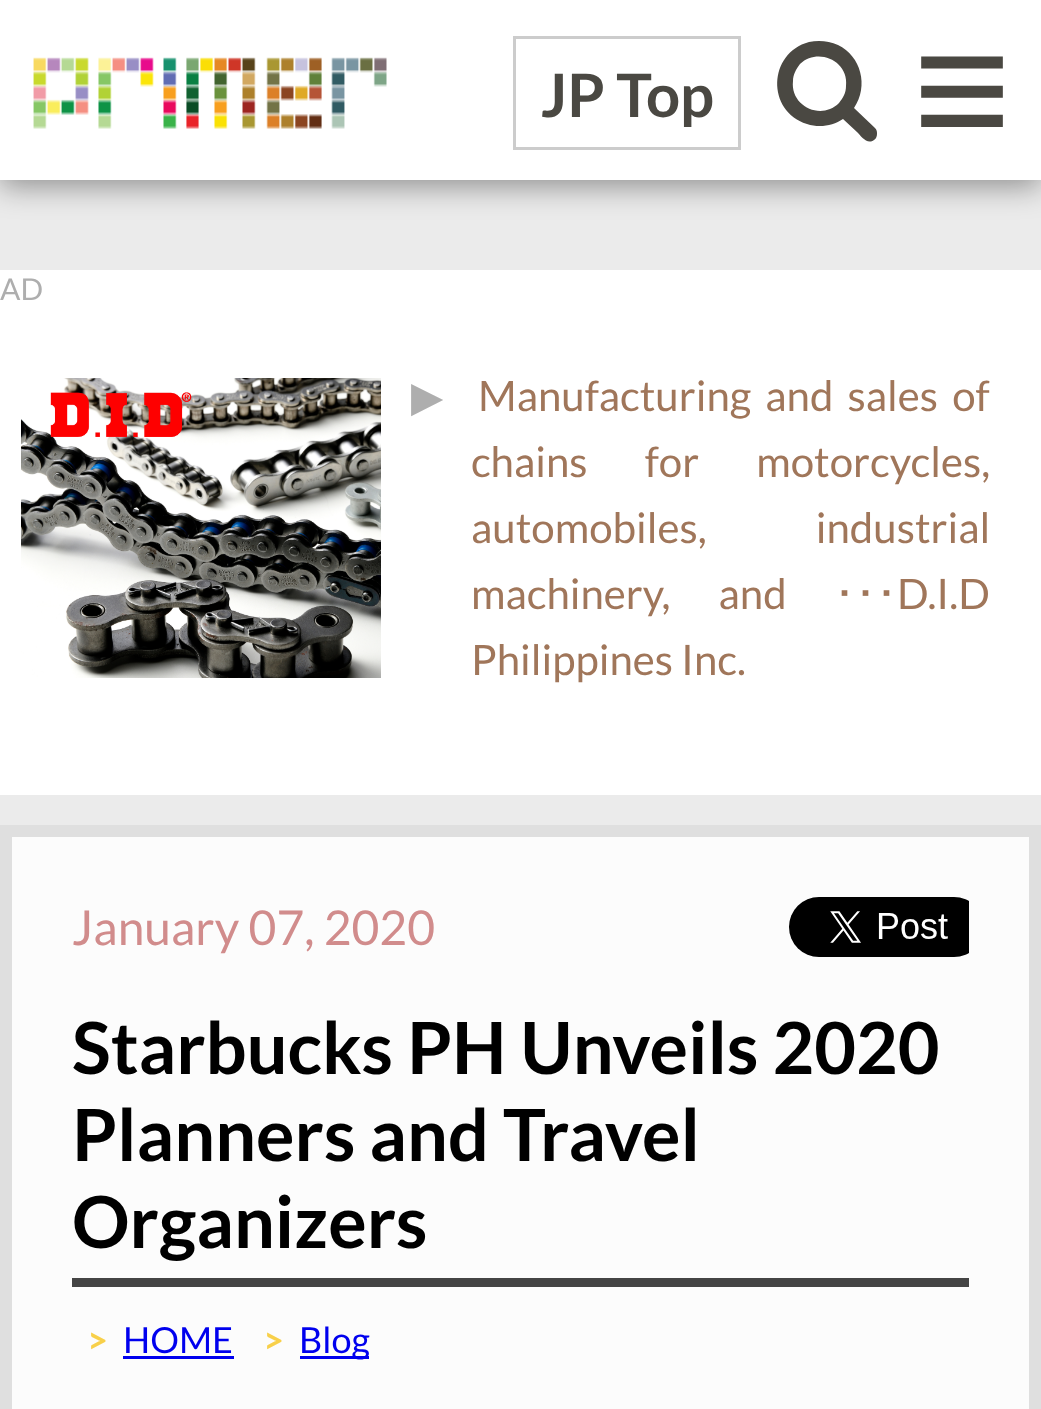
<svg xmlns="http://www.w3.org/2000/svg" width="1041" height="1409">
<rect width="100%" height="100%" fill="#ebebeb"/>
<rect y="6" width="1041" height="180" fill="#00000066" filter="blur(15px)"/>
<rect width="1041" height="180" fill="#fff"/>
<image x="33" y="57" width="354" height="72" href="media/1.png"/>
<rect x="514.5" y="37.5" width="225" height="111" fill="none" stroke="#ccc" stroke-width="3"/>
<text x="541" y="117" style="font-family:Lato;font-size:60px;font-weight:bold;fill:#4a4842">JP Top</text>
<path d="M839 103c4-5 7-10 7-17c3-25-28-39-46-22c-4 5-7 11-7 17c-3 25 28 40 46 22zm38 31c0 2-1 5-3 6c-7 5-13-4-17-8l-14-13c-10 7-24 9-36 5c-41-13-39-71 2-82c10-2 20-1 29 3c23 11 31 41 16 63l21 20c2 2 2 4 2 6z" fill="#4a4842"/>
<text x="913" y="147" style="font-family:Liberation Sans;font-size:168px;font-weight:bold;fill:#4a4842">≡</text>
<rect y="270" width="1041" height="525" fill="#fff"/>
<text x="0" y="300" style="font-family:Lato;font-size:30px;fill:#aeaeae">AD</text>
<image x="21" y="378" width="360" height="300" href="media/2.png"/>
<text x="411" y="411" style="font-family:DejaVu Sans;font-size:42px;fill:#aeaeae">▶</text>
<text x="478" y="411" word-spacing="6" style="font-family:Lato;font-size:42px;fill:#a0765a">Manufacturing and sales of</text>
<text x="471" y="477" word-spacing="49" style="font-family:Lato;font-size:42px;fill:#a0765a">chains for motorcycles,</text>
<text x="471" y="543" word-spacing="101" style="font-family:Lato;font-size:42px;fill:#a0765a">automobiles, industrial</text>
<text x="471" y="609" word-spacing="40" style="font-family:Lato;font-size:42px;fill:#a0765a">machinery, and</text>
<text x="834" y="609" style="font-family:IPAGothic;font-size:42px;fill:#a0765a">･･･</text>
<text x="897" y="609" style="font-family:Lato;font-size:42px;fill:#a0765a">D.I.D</text>
<text x="471" y="675" style="font-family:Lato;font-size:42px;fill:#a0765a">Philippines Inc.</text>
<rect x="6" y="831" width="1029" height="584" fill="#fcfcfc" stroke="#dfdfdf" stroke-width="12"/>
<text x="72" y="945" style="font-family:Lato;font-size:48px;fill:#d18c8c">January 07, 2020</text>
<image x="789" y="897" width="180" height="60" href="media/3.png"/>
<rect x="72" y="1278" width="897" height="9" fill="#444"/>
<text x="72" y="1074" style="font-family:Lato;font-size:72px;font-weight:bold;fill:#000">Starbucks PH Unveils 2020</text>
<text x="72" y="1161" style="font-family:Lato;font-size:72px;font-weight:bold;fill:#000">Planners and Travel</text>
<text x="72" y="1248" style="font-family:Lato;font-size:72px;font-weight:bold;fill:#000">Organizers</text>
<text x="87" y="1353" style="font-family:Lato;font-size:36px;font-weight:bold;fill:#f8d04a">&gt;</text>
<text x="123" y="1353" style="font-family:Lato;font-size:36px;fill:#00e">HOME</text>
<rect x="123" y="1356" width="111" height="3" fill="#00e"/>
<text x="263" y="1353" style="font-family:Lato;font-size:36px;font-weight:bold;fill:#f8d04a">&gt;</text>
<rect x="300" y="1356" width="69" height="3" fill="#00e"/>
<text x="299" y="1353" style="font-family:Lato;font-size:36px;fill:#00e">Blog</text>
</svg>
